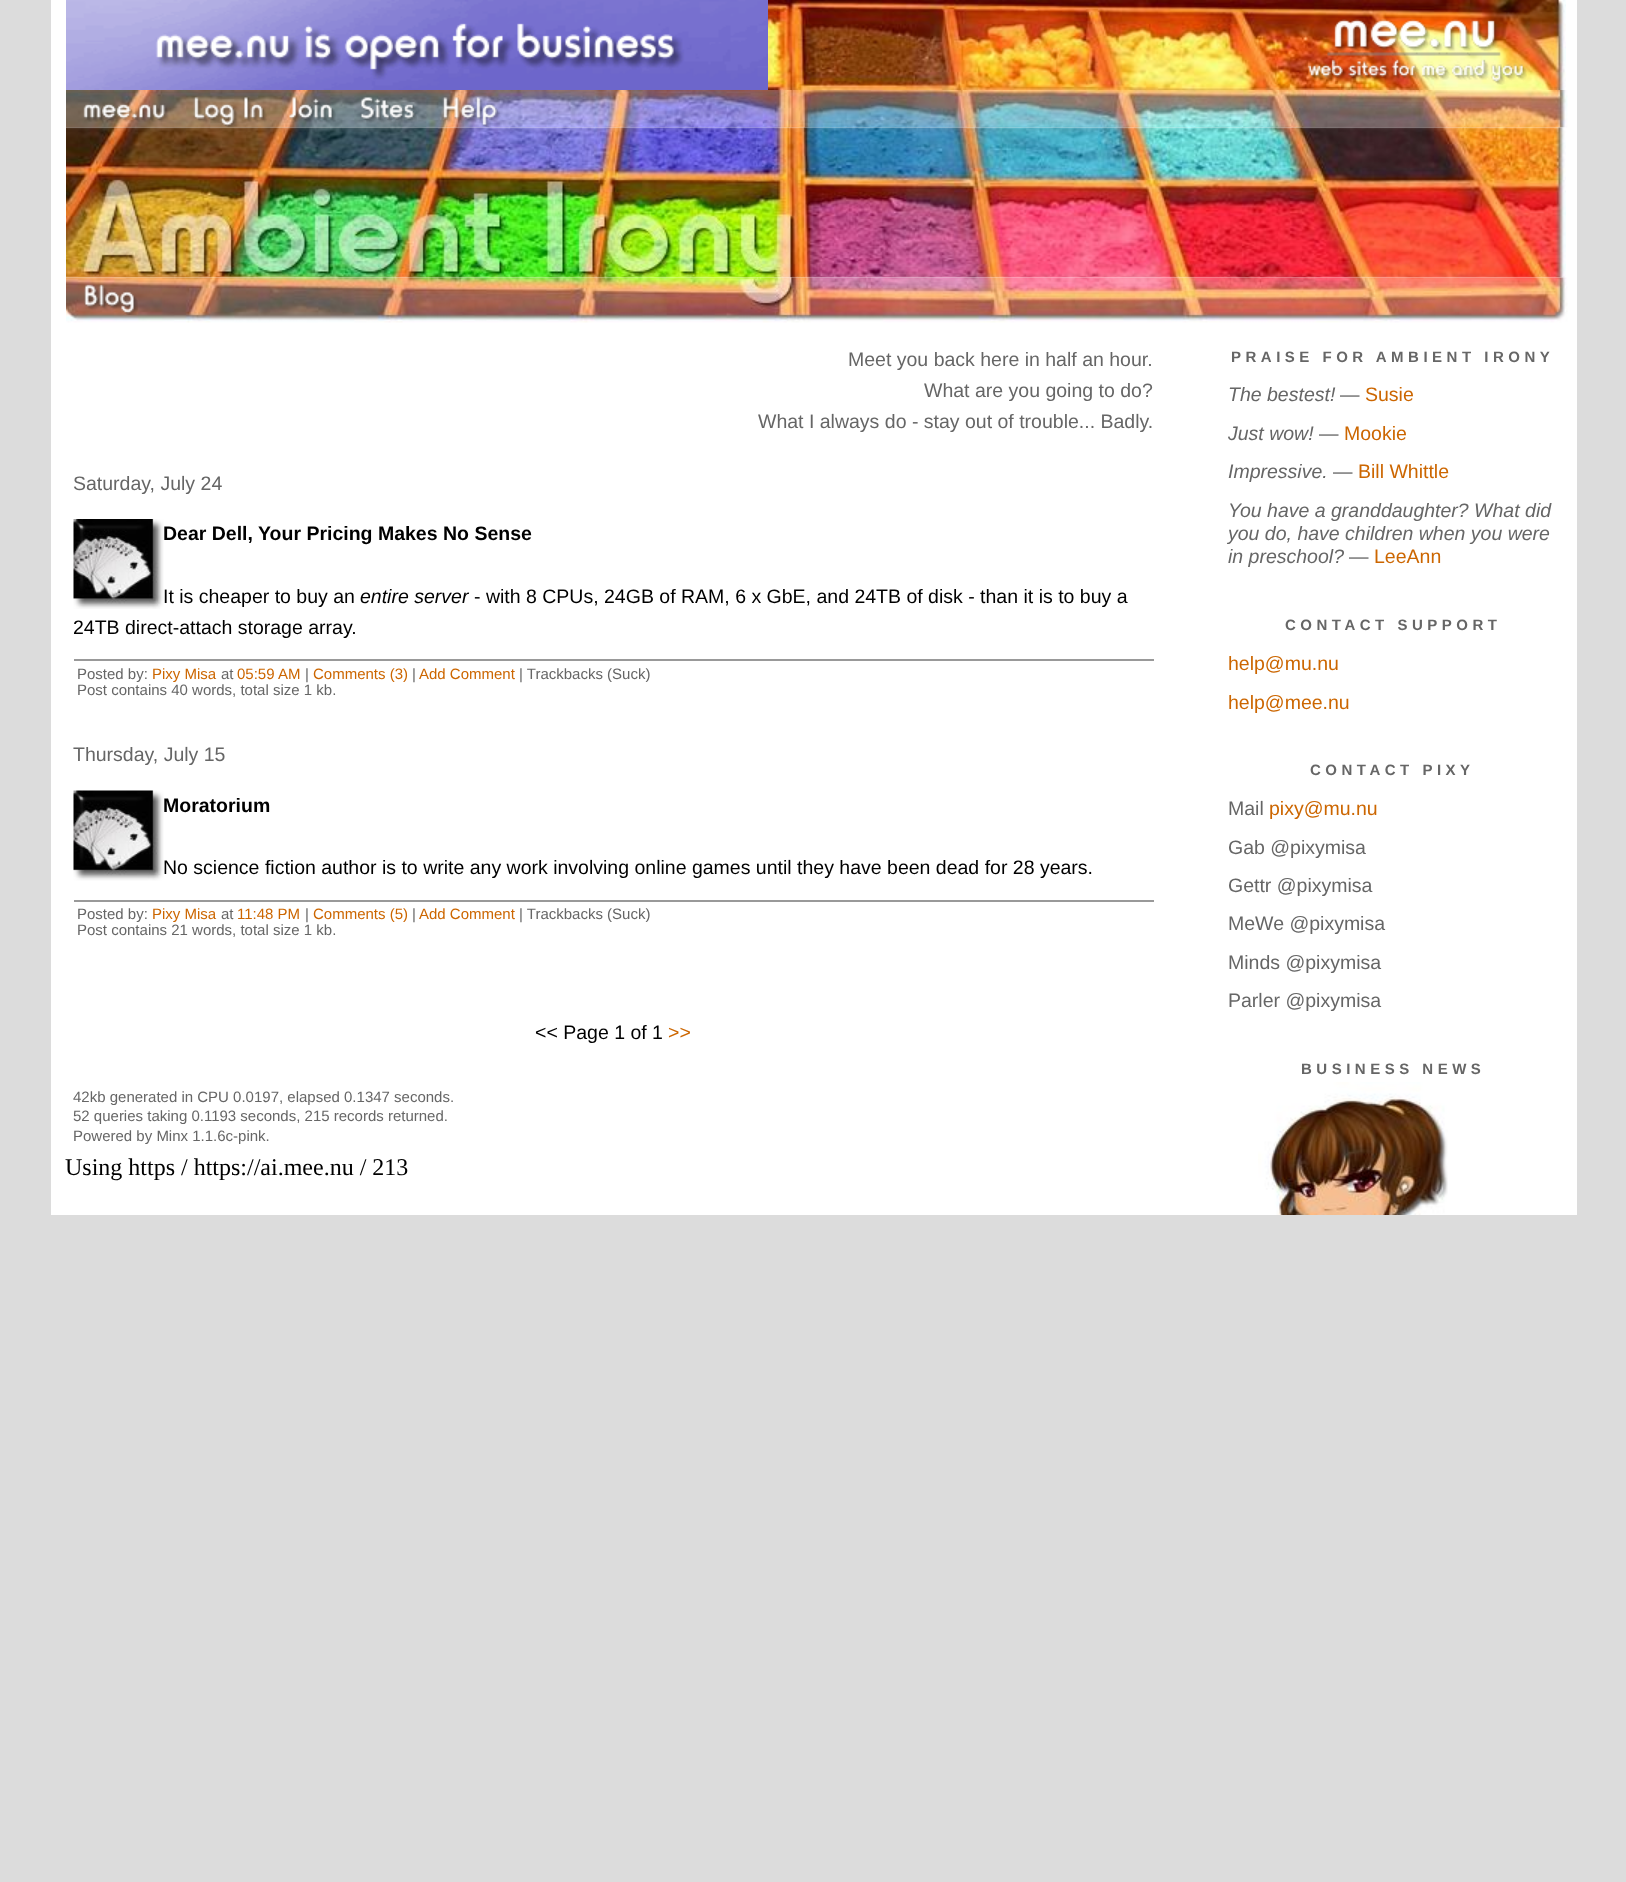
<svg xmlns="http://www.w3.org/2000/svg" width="1626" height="1882">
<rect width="100%" height="100%" fill="#dcdcdc"/>
<rect x="51" width="1526" height="1215" fill="#fff"/>
<image x="768" y="0" width="798" height="90" href="media/1.png"/>
<image x="66" y="0" width="702" height="90" href="media/2.png"/>
<image x="1307" y="19" width="220" height="66" href="media/3.png"/>
<image x="66" y="90" width="1502" height="38" href="media/4.png"/>
<image x="83" y="103" width="86" height="19" href="media/5.png"/>
<image x="193" y="97" width="74" height="31" href="media/6.png"/>
<image x="289" y="97" width="47" height="25" href="media/7.png"/>
<image x="360" y="97" width="57" height="26" href="media/8.png"/>
<image x="442" y="97" width="59" height="31" href="media/9.png"/>
<image x="66" y="127" width="1500" height="151" href="media/10.png"/>
<image x="66" y="277" width="1502" height="46" href="media/11.png"/>
<image x="84" y="284" width="54" height="31" href="media/12.png"/>
<text x="848" y="366" style="font-family:Liberation Sans;font-size:19.5px;fill:#666">Meet you back here in half an hour.</text>
<text x="924" y="397" style="font-family:Liberation Sans;font-size:19.5px;fill:#666">What are you going to do?</text>
<text x="758" y="428" style="font-family:Liberation Sans;font-size:19.5px;fill:#666">What I always do - stay out of trouble... Badly.</text>
<text x="73" y="490" style="font-family:Liberation Sans;font-size:19.5px;fill:#666">Saturday, July 24</text>
<image x="73" y="519" width="91" height="90" href="media/13.png"/>
<text x="163" y="540" style="font-family:Liberation Sans;font-size:19.5px;font-weight:bold;fill:#000">Dear Dell, Your Pricing Makes No Sense</text>
<text x="163" y="603" style="font-family:Liberation Sans;font-size:19.5px;fill:#000">It is cheaper to buy an</text>
<text x="360" y="603" style="font-family:Liberation Sans;font-size:19.5px;font-style:italic;fill:#000">entire server</text>
<text x="474" y="603" style="font-family:Liberation Sans;font-size:19.5px;fill:#000">- with 8 CPUs, 24GB of RAM, 6 x GbE, and 24TB of disk - than it is to buy a</text>
<text x="73" y="634" style="font-family:Liberation Sans;font-size:19.5px;fill:#000">24TB direct-attach storage array.</text>
<rect x="74" y="659" width="1080" height="2" fill="#999"/>
<text x="77" y="679" style="font-family:Liberation Sans;font-size:15px;fill:#666">Posted by:</text>
<text x="152" y="679" style="font-family:Liberation Sans;font-size:15px;fill:#c60">Pixy Misa</text>
<text x="221" y="679" style="font-family:Liberation Sans;font-size:15px;fill:#666">at</text>
<text x="237" y="679" style="font-family:Liberation Sans;font-size:15px;fill:#c60">05:59 AM</text>
<text x="305" y="679" style="font-family:Liberation Sans;font-size:15px;fill:#666">|</text>
<text x="313" y="679" style="font-family:Liberation Sans;font-size:15px;fill:#c60">Comments (3)</text>
<text x="412" y="679" style="font-family:Liberation Sans;font-size:15px;fill:#666">|</text>
<text x="419" y="679" style="font-family:Liberation Sans;font-size:15px;fill:#c60">Add Comment</text>
<text x="519" y="679" style="font-family:Liberation Sans;font-size:15px;fill:#666">| Trackbacks (Suck)</text>
<text x="77" y="695" style="font-family:Liberation Sans;font-size:15px;fill:#666">Post contains 40 words, total size 1 kb.</text>
<text x="73" y="761" style="font-family:Liberation Sans;font-size:19.5px;fill:#666">Thursday, July 15</text>
<image x="73" y="790" width="91" height="91" href="media/14.png"/>
<text x="163" y="812" style="font-family:Liberation Sans;font-size:19.5px;font-weight:bold;fill:#000">Moratorium</text>
<text x="163" y="874" style="font-family:Liberation Sans;font-size:19.5px;fill:#000">No science fiction author is to write any work involving online games until they have been dead for 28 years.</text>
<rect x="74" y="900" width="1080" height="2" fill="#999"/>
<text x="77" y="919" style="font-family:Liberation Sans;font-size:15px;fill:#666">Posted by:</text>
<text x="152" y="919" style="font-family:Liberation Sans;font-size:15px;fill:#c60">Pixy Misa</text>
<text x="221" y="919" style="font-family:Liberation Sans;font-size:15px;fill:#666">at</text>
<text x="237" y="919" style="font-family:Liberation Sans;font-size:15px;fill:#c60">11:48 PM</text>
<text x="305" y="919" style="font-family:Liberation Sans;font-size:15px;fill:#666">|</text>
<text x="313" y="919" style="font-family:Liberation Sans;font-size:15px;fill:#c60">Comments (5)</text>
<text x="412" y="919" style="font-family:Liberation Sans;font-size:15px;fill:#666">|</text>
<text x="419" y="919" style="font-family:Liberation Sans;font-size:15px;fill:#c60">Add Comment</text>
<text x="519" y="919" style="font-family:Liberation Sans;font-size:15px;fill:#666">| Trackbacks (Suck)</text>
<text x="77" y="935" style="font-family:Liberation Sans;font-size:15px;fill:#666">Post contains 21 words, total size 1 kb.</text>
<text x="535" y="1039" style="font-family:Liberation Sans;font-size:19.5px;fill:#000">&lt;&lt; Page 1 of 1</text>
<text x="668" y="1039" style="font-family:Liberation Sans;font-size:19.5px;fill:#c60">&gt;&gt;</text>
<text x="73" y="1102" style="font-family:Liberation Sans;font-size:15px;fill:#666">42kb generated in CPU 0.0197, elapsed 0.1347 seconds.</text>
<text x="73" y="1121" style="font-family:Liberation Sans;font-size:15px;fill:#666">52 queries taking 0.1193 seconds, 215 records returned.</text>
<text x="73" y="1141" style="font-family:Liberation Sans;font-size:15px;fill:#666">Powered by Minx 1.1.6c-pink.</text>
<text x="1231" y="362" style="font-family:Liberation Sans;font-size:15px;font-weight:bold;letter-spacing:4.5px;fill:#666">PRAISE FOR AMBIENT IRONY</text>
<text x="1228" y="401" style="font-family:Liberation Sans;font-size:19.5px;font-style:italic;fill:#666">The bestest!</text>
<text x="1340" y="401" style="font-family:Liberation Sans;font-size:19.5px;fill:#666">—</text>
<text x="1365" y="401" style="font-family:Liberation Sans;font-size:19.5px;fill:#c60">Susie</text>
<text x="1228" y="440" style="font-family:Liberation Sans;font-size:19.5px;font-style:italic;fill:#666">Just wow!</text>
<text x="1319" y="440" style="font-family:Liberation Sans;font-size:19.5px;fill:#666">—</text>
<text x="1344" y="440" style="font-family:Liberation Sans;font-size:19.5px;fill:#c60">Mookie</text>
<text x="1228" y="478" style="font-family:Liberation Sans;font-size:19.5px;font-style:italic;fill:#666">Impressive.</text>
<text x="1333" y="478" style="font-family:Liberation Sans;font-size:19.5px;fill:#666">—</text>
<text x="1358" y="478" style="font-family:Liberation Sans;font-size:19.5px;fill:#c60">Bill Whittle</text>
<text x="1228" y="517" style="font-family:Liberation Sans;font-size:19.5px;font-style:italic;fill:#666">You have a granddaughter? What did</text>
<text x="1228" y="540" style="font-family:Liberation Sans;font-size:19.5px;font-style:italic;fill:#666">you do, have children when you were</text>
<text x="1228" y="563" style="font-family:Liberation Sans;font-size:19.5px;font-style:italic;fill:#666">in preschool?</text>
<text x="1349" y="563" style="font-family:Liberation Sans;font-size:19.5px;fill:#666">—</text>
<text x="1374" y="563" style="font-family:Liberation Sans;font-size:19.5px;fill:#c60">LeeAnn</text>
<text x="1285" y="630" style="font-family:Liberation Sans;font-size:15px;font-weight:bold;letter-spacing:4.5px;fill:#666">CONTACT SUPPORT</text>
<text x="1228" y="670" style="font-family:Liberation Sans;font-size:19.5px;fill:#c60">help@mu.nu</text>
<text x="1228" y="709" style="font-family:Liberation Sans;font-size:19.5px;fill:#c60">help@mee.nu</text>
<text x="1310" y="775" style="font-family:Liberation Sans;font-size:15px;font-weight:bold;letter-spacing:4.5px;fill:#666">CONTACT PIXY</text>
<text x="1228" y="815" style="font-family:Liberation Sans;font-size:19.5px;fill:#666">Mail</text>
<text x="1269" y="815" style="font-family:Liberation Sans;font-size:19.5px;fill:#c60">pixy@mu.nu</text>
<text x="1228" y="854" style="font-family:Liberation Sans;font-size:19.5px;fill:#666">Gab @pixymisa</text>
<text x="1228" y="892" style="font-family:Liberation Sans;font-size:19.5px;fill:#666">Gettr @pixymisa</text>
<text x="1228" y="930" style="font-family:Liberation Sans;font-size:19.5px;fill:#666">MeWe @pixymisa</text>
<text x="1228" y="969" style="font-family:Liberation Sans;font-size:19.5px;fill:#666">Minds @pixymisa</text>
<text x="1228" y="1007" style="font-family:Liberation Sans;font-size:19.5px;fill:#666">Parler @pixymisa</text>
<text x="1301" y="1074" style="font-family:Liberation Sans;font-size:15px;font-weight:bold;letter-spacing:4.5px;fill:#666">BUSINESS NEWS</text>
<image x="1258" y="1082" width="190" height="133" href="media/15.png"/>
<text x="65" y="1175" style="font-family:Liberation Serif;font-size:24px;fill:#000">Using https / https://ai.mee.nu / 213</text>
</svg>
